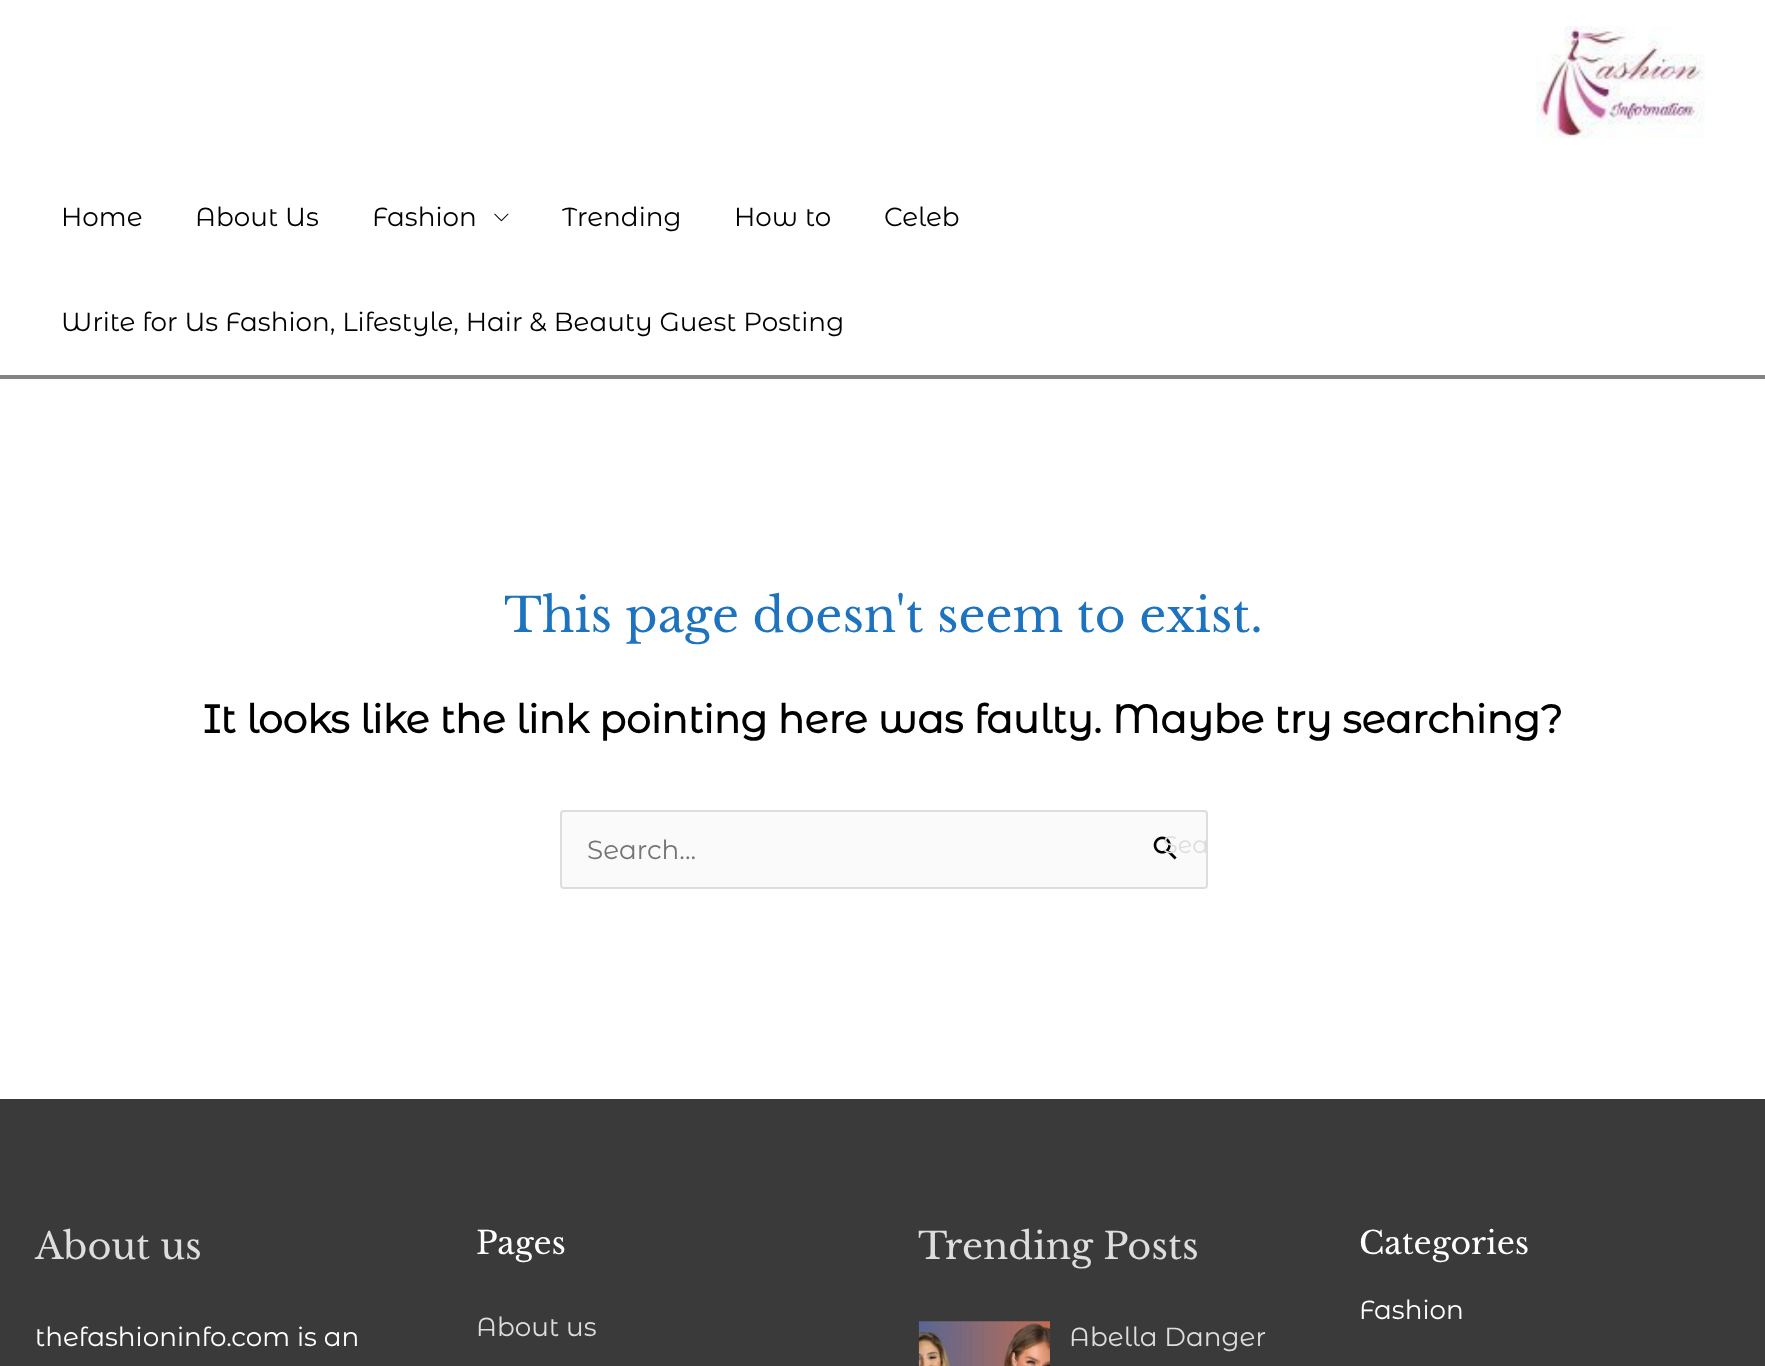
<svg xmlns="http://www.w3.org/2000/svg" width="1765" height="1366">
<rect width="100%" height="100%" fill="#fff"/>
<rect y="375" width="1765" height="4" fill="#848484"/>
<image x="1536" y="26" width="169" height="113" href="media/1.png"/>
<text x="61" y="226" style="font-family:Montserrat Alternates;font-size:26.25px;fill:#000">Home</text>
<text x="195" y="226" style="font-family:Montserrat Alternates;font-size:26.25px;fill:#000">About Us</text>
<text x="372" y="226" style="font-family:Montserrat Alternates;font-size:26.25px;fill:#000">Fashion</text>
<image x="494" y="213" width="15" height="9" href="media/2.png"/>
<text x="562" y="226" style="font-family:Montserrat Alternates;font-size:26.25px;fill:#000">Trending</text>
<text x="734" y="226" style="font-family:Montserrat Alternates;font-size:26.25px;fill:#000">How to</text>
<text x="884" y="226" style="font-family:Montserrat Alternates;font-size:26.25px;fill:#000">Celeb</text>
<text x="61" y="331" style="font-family:Montserrat Alternates;font-size:26.25px;fill:#000">Write for Us Fashion, Lifestyle, Hair &amp; Beauty Guest Posting</text>
<text x="504" y="632" style="font-family:Libre Baskerville;font-size:47.25px;fill:#1e73be">This page doesn't seem to exist.</text>
<text x="203" y="733" style="font-family:Montserrat Alternates;font-size:39.4px;font-weight:bold;fill:#000">It looks like the link pointing here was faulty. Maybe try searching?</text>
<rect x="561" y="811" width="646" height="77" rx="3" fill="#fafafa" stroke="#ddd" stroke-width="2"/>
<image x="1153" y="836" width="24" height="24" href="media/3.png"/>
<text x="1163" y="853" style="font-family:Montserrat Alternates;font-size:24px;fill:#ddd">Sea</text>
<text x="587" y="859" style="font-family:Montserrat Alternates;font-size:26.25px;fill:#757575">Search...</text>
<rect y="1099" width="1765" height="267" fill="#3a3a3a"/>
<text x="35" y="1259" style="font-family:Libre Baskerville;font-size:36.75px;fill:#ddd">About us</text>
<text x="35" y="1346" style="font-family:Montserrat Alternates;font-size:26.25px;fill:#fff">thefashioninfo.com is an</text>
<text x="476" y="1254" style="font-family:Libre Baskerville;font-size:31.5px;fill:#fff">Pages</text>
<text x="476" y="1336" style="font-family:Montserrat Alternates;font-size:26.25px;fill:#ddd">About us</text>
<text x="918" y="1259" style="font-family:Libre Baskerville;font-size:36.75px;fill:#ddd">Trending Posts</text>
<image x="918" y="1321" width="132" height="45" href="media/4.png"/>
<text x="1069" y="1346" style="font-family:Montserrat Alternates;font-size:26.25px;fill:#ddd">Abella Danger</text>
<text x="1359" y="1254" style="font-family:Libre Baskerville;font-size:31.5px;fill:#fff">Categories</text>
<text x="1359" y="1319" style="font-family:Montserrat Alternates;font-size:26.25px;fill:#fff">Fashion</text>
</svg>
